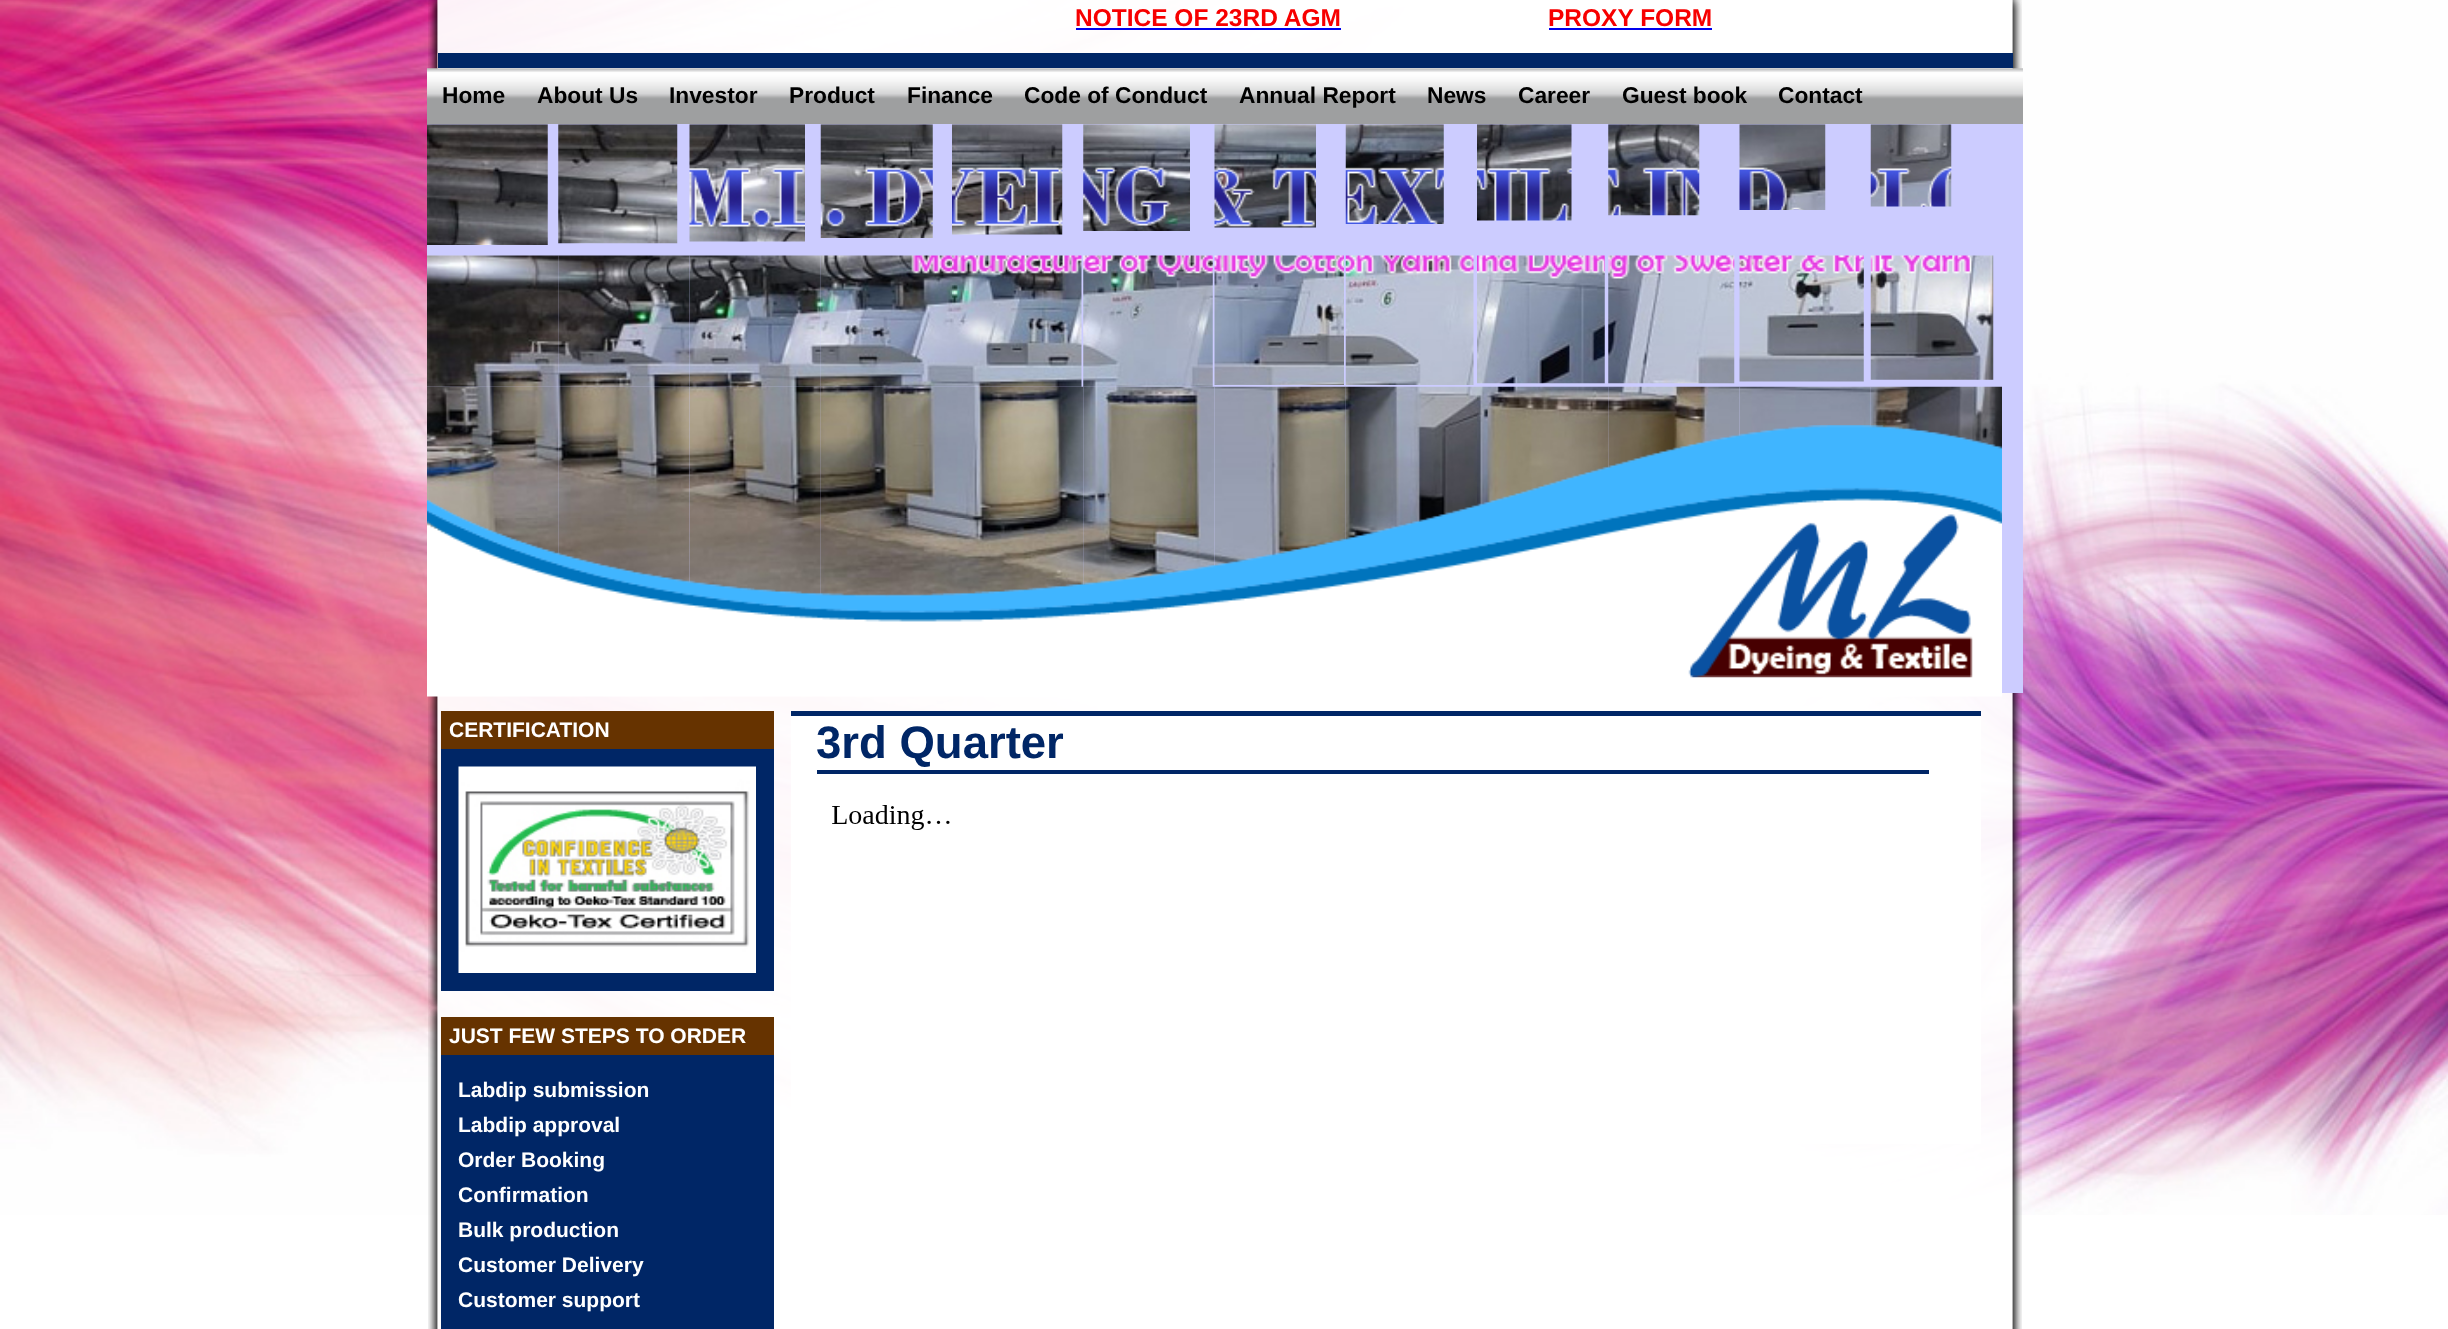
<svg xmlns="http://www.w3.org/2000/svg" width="2448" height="1329">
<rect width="100%" height="100%" fill="#fff"/>
<image x="0" y="0" width="2448" height="1215" href="media/1.png"/>
<image x="428" y="0" width="1594" height="1329" href="media/2.png"/>
<image x="428" y="0" width="1594" height="1329" href="media/3.png"/>
<text x="1075" y="26" style="font-family:Liberation Sans;font-size:24.5px;font-weight:bold;fill:#f70000">NOTICE OF 23RD AGM</text>
<rect x="1076" y="28" width="265" height="2" fill="#00e"/>
<text x="1548" y="26" style="font-family:Liberation Sans;font-size:24.5px;font-weight:bold;fill:#f70000">PROXY FORM</text>
<rect x="1549" y="28" width="163" height="2" fill="#00e"/>
<rect x="438" y="53" width="1575" height="15" fill="#002666"/>
<image x="427" y="68" width="1596" height="56" href="media/4.png"/>
<text x="442" y="103" style="font-family:Liberation Sans;font-size:22.75px;font-weight:bold;fill:#000">Home</text>
<text x="537" y="103" style="font-family:Liberation Sans;font-size:22.75px;font-weight:bold;fill:#000">About Us</text>
<text x="669" y="103" style="font-family:Liberation Sans;font-size:22.75px;font-weight:bold;fill:#000">Investor</text>
<text x="789" y="103" style="font-family:Liberation Sans;font-size:22.75px;font-weight:bold;fill:#000">Product</text>
<text x="907" y="103" style="font-family:Liberation Sans;font-size:22.75px;font-weight:bold;fill:#000">Finance</text>
<text x="1024" y="103" style="font-family:Liberation Sans;font-size:22.75px;font-weight:bold;fill:#000">Code of Conduct</text>
<text x="1239" y="103" style="font-family:Liberation Sans;font-size:22.75px;font-weight:bold;fill:#000">Annual Report</text>
<text x="1427" y="103" style="font-family:Liberation Sans;font-size:22.75px;font-weight:bold;fill:#000">News</text>
<text x="1518" y="103" style="font-family:Liberation Sans;font-size:22.75px;font-weight:bold;fill:#000">Career</text>
<text x="1622" y="103" style="font-family:Liberation Sans;font-size:22.75px;font-weight:bold;fill:#000">Guest book</text>
<text x="1778" y="103" style="font-family:Liberation Sans;font-size:22.75px;font-weight:bold;fill:#000">Contact</text>
<rect x="427" y="124" width="1596" height="569" fill="#ccf"/>
<image x="427" y="124" width="121" height="121" href="media/5.png"/>
<image x="558" y="124" width="120" height="120" href="media/6.png"/>
<image x="689" y="124" width="116" height="118" href="media/7.png"/>
<image x="820" y="124" width="113" height="114" href="media/8.png"/>
<image x="952" y="124" width="111" height="111" href="media/9.png"/>
<image x="1083" y="124" width="107" height="107" href="media/10.png"/>
<image x="1214" y="124" width="102" height="104" href="media/11.png"/>
<image x="1345" y="124" width="99" height="100" href="media/12.png"/>
<image x="1477" y="124" width="95" height="97" href="media/13.png"/>
<image x="1608" y="124" width="92" height="92" href="media/14.png"/>
<image x="1739" y="124" width="87" height="86" href="media/15.png"/>
<image x="1870" y="124" width="82" height="83" href="media/16.png"/>
<image x="427" y="255" width="132" height="132" href="media/17.png"/>
<image x="558" y="255" width="132" height="132" href="media/18.png"/>
<image x="689" y="255" width="132" height="132" href="media/19.png"/>
<image x="820" y="255" width="132" height="132" href="media/20.png"/>
<image x="952" y="255" width="130" height="132" href="media/21.png"/>
<image x="1083" y="255" width="130" height="132" href="media/22.png"/>
<image x="1214" y="255" width="130" height="130" href="media/23.png"/>
<image x="1345" y="255" width="129" height="130" href="media/24.png"/>
<image x="1477" y="255" width="128" height="129" href="media/25.png"/>
<image x="1608" y="255" width="127" height="129" href="media/26.png"/>
<image x="1739" y="255" width="125" height="127" href="media/27.png"/>
<image x="1870" y="255" width="124" height="125" href="media/28.png"/>
<image x="427" y="386" width="132" height="132" href="media/29.png"/>
<image x="558" y="386" width="132" height="132" href="media/30.png"/>
<image x="689" y="386" width="132" height="132" href="media/31.png"/>
<image x="820" y="386" width="132" height="132" href="media/32.png"/>
<image x="952" y="386" width="132" height="132" href="media/33.png"/>
<image x="1083" y="386" width="132" height="132" href="media/34.png"/>
<image x="1214" y="386" width="132" height="132" href="media/35.png"/>
<image x="1345" y="386" width="132" height="132" href="media/36.png"/>
<image x="1477" y="386" width="132" height="121" href="media/37.png"/>
<image x="1608" y="386" width="132" height="83" href="media/38.png"/>
<image x="1739" y="386" width="132" height="51" href="media/39.png"/>
<image x="1870" y="386" width="132" height="63" href="media/40.png"/>
<image x="427" y="518" width="132" height="38" href="media/41.png"/>
<image x="558" y="518" width="132" height="66" href="media/42.png"/>
<image x="689" y="518" width="132" height="78" href="media/43.png"/>
<image x="820" y="518" width="132" height="80" href="media/44.png"/>
<image x="952" y="518" width="132" height="78" href="media/45.png"/>
<image x="1083" y="518" width="132" height="67" href="media/46.png"/>
<image x="1214" y="518" width="132" height="50" href="media/47.png"/>
<image x="1345" y="518" width="93" height="23" href="media/48.png"/>
<image x="427" y="425" width="1575" height="272" href="media/49.png"/>
<image x="1688" y="514" width="285" height="164" href="media/50.png"/>
<rect x="441" y="749" width="333" height="242" fill="#002666"/>
<rect x="441" y="711" width="333" height="38" fill="#630"/>
<text x="449" y="737" style="font-family:Liberation Sans;font-size:21px;font-weight:bold;fill:#fff">CERTIFICATION</text>
<image x="458" y="766" width="298" height="207" href="media/51.png"/>
<rect x="441" y="1055" width="333" height="274" fill="#002666"/>
<rect x="441" y="1017" width="333" height="38" fill="#630"/>
<text x="449" y="1043" style="font-family:Liberation Sans;font-size:21px;font-weight:bold;fill:#fff">JUST FEW STEPS TO ORDER</text>
<text x="458" y="1097" style="font-family:Liberation Sans;font-size:21px;font-weight:bold;fill:#fff">Labdip submission</text>
<text x="458" y="1132" style="font-family:Liberation Sans;font-size:21px;font-weight:bold;fill:#fff">Labdip approval</text>
<text x="458" y="1167" style="font-family:Liberation Sans;font-size:21px;font-weight:bold;fill:#fff">Order Booking</text>
<text x="458" y="1202" style="font-family:Liberation Sans;font-size:21px;font-weight:bold;fill:#fff">Confirmation</text>
<text x="458" y="1237" style="font-family:Liberation Sans;font-size:21px;font-weight:bold;fill:#fff">Bulk production</text>
<text x="458" y="1272" style="font-family:Liberation Sans;font-size:21px;font-weight:bold;fill:#fff">Customer Delivery</text>
<text x="458" y="1307" style="font-family:Liberation Sans;font-size:21px;font-weight:bold;fill:#fff">Customer support</text>
<rect x="791" y="716" width="1190" height="428" fill="#fff"/>
<rect x="791" y="711" width="1190" height="5" fill="#002666"/>
<text x="816" y="758" style="font-family:Liberation Sans;font-size:45.5px;font-weight:bold;fill:#002666">3rd Quarter</text>
<rect x="817" y="770" width="1112" height="4" fill="#002666"/>
<image x="832" y="805" width="118" height="25" href="media/52.png"/>
</svg>
